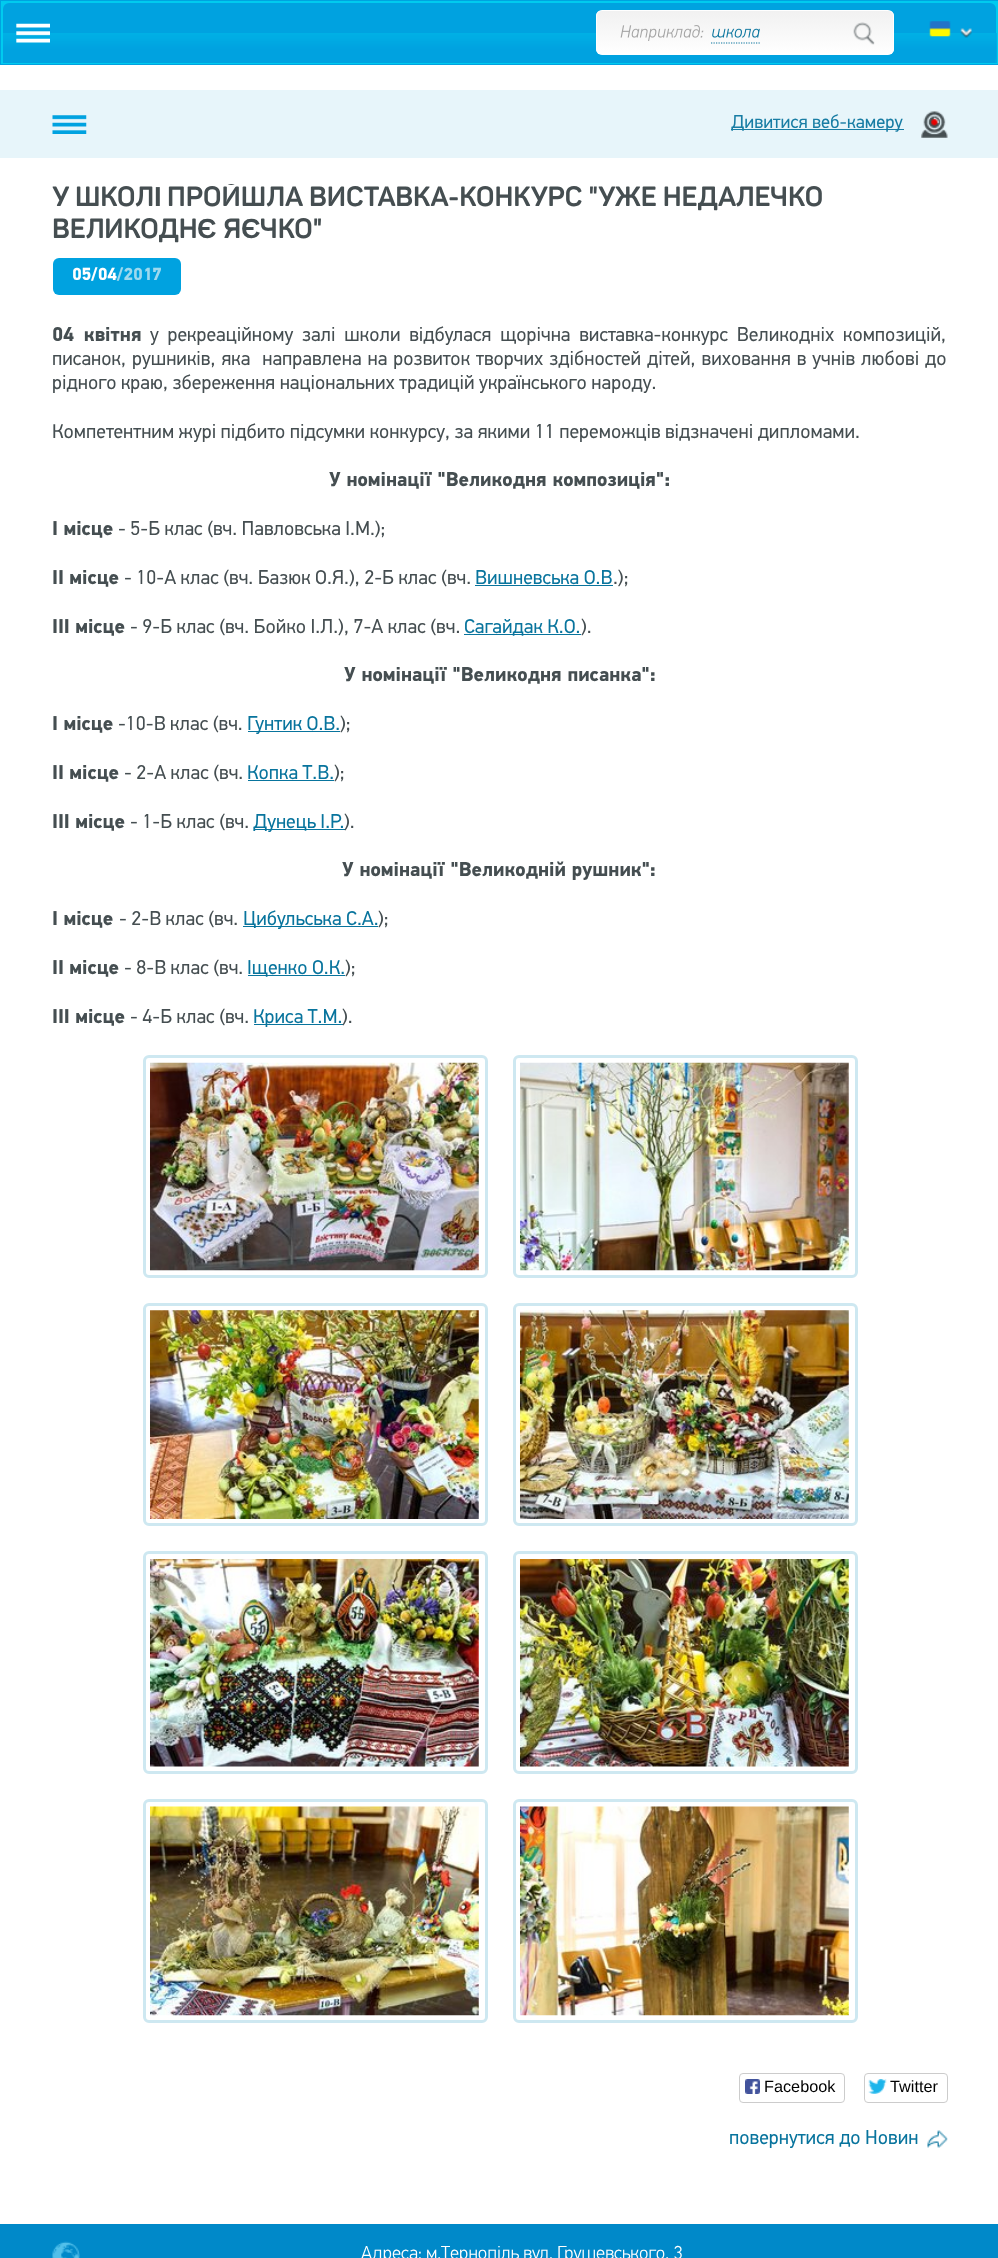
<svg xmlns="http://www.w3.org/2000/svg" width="998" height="2258">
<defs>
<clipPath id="clip1"><rect x="596" y="10" width="298" height="45" rx="6"/></clipPath>
<linearGradient id="g1" gradientUnits="userSpaceOnUse" x1="745" y1="11" x2="745" y2="54"><stop offset="0" stop-color="#f1f1f1"/><stop offset="1" stop-color="#fff"/></linearGradient>
<clipPath id="clip2"><rect x="53" y="184" width="895" height="1992"/></clipPath>
</defs>
<rect width="100%" height="100%" fill="#fff"/>
<rect x="0.5" y="0.5" width="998" height="64" fill="#00cbef" stroke="#00a2e0"/>
<rect x="3" y="3" width="993" height="60" rx="6" fill="#00a2e0"/>
<image x="3" y="33" width="994" height="30" href="media/7.png"/>
<image x="16" y="23" width="34" height="20" href="media/1.png"/>
<g clip-path="url(#clip1)">
<rect x="596" y="11" width="298" height="43" fill="url(#g1)"/>
</g>
<rect x="596.5" y="10.5" width="297" height="44" rx="5.5" fill="none" stroke="#fff"/>
<image x="620" y="25" width="84" height="16" href="media/2.png"/>
<image x="712" y="28" width="48" height="10" href="media/3.png"/>
<path d="M711 43h49" fill="none" stroke="#08749d" stroke-width="1.2" stroke-dasharray="1.25 1.25"/>
<image x="853" y="22" width="22" height="23" href="media/4.png"/>
<image x="929" y="21" width="22" height="16" href="media/5.png"/>
<image x="960" y="28" width="12" height="10" href="media/6.png"/>
<rect y="90" width="998" height="68" fill="#e7f5fa"/>
<image x="52" y="115" width="35" height="19" href="media/8.png"/>
<rect x="731" y="129" width="173" height="1" fill="#187da4"/>
<text x="731" y="128" style="font-family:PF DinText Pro;font-size:18.75px;fill:#187da4">Дивитися веб-камеру</text>
<image x="921" y="111" width="27" height="27" href="media/9.png"/>
<text x="52" y="206" style="font-family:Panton;font-size:27.5px;font-weight:bold;fill:#454e51">У ШКОЛ</text>
<text x="154" y="206" style="font-family:Liberation Sans;font-size:27.5px;font-weight:bold;fill:#454e51">І</text>
<g clip-path="url(#clip2)">
<text x="167" y="206" style="font-family:Panton;font-size:27.5px;font-weight:bold;fill:#454e51">ПРОЙШЛА ВИСТАВКА-КОНКУРС "УЖЕ НЕДАЛЕЧКО</text>
</g>
<text x="52" y="238" style="font-family:Panton;font-size:27.5px;font-weight:bold;fill:#454e51">ВЕЛИКОДН</text>
<text x="197" y="238" style="font-family:Liberation Sans;font-size:27.5px;font-weight:bold;fill:#454e51">Є</text>
<text x="223" y="238" style="font-family:Panton;font-size:27.5px;font-weight:bold;fill:#454e51">Я</text>
<text x="241" y="238" style="font-family:Liberation Sans;font-size:27.5px;font-weight:bold;fill:#454e51">Є</text>
<text x="260" y="238" style="font-family:Panton;font-size:27.5px;font-weight:bold;fill:#454e51">ЧКО"</text>
<rect x="53" y="258" width="128" height="37" rx="6" fill="#00a2e0"/>
<text x="72" y="280" style="font-family:PF DinText Pro;font-size:17.5px;font-weight:bold;fill:#fff">05/04</text>
<text x="117" y="280" style="font-family:PF DinText Pro;font-size:17.5px;font-weight:bold;fill:#9dd9ee">/2017</text>
<text x="52" y="341" word-spacing="4.25" style="font-family:PF DinText Pro;font-size:20px;font-weight:bold;fill:#454e51">04 квітня</text>
<text x="150" y="341" word-spacing="4.25" style="font-family:PF DinText Pro;font-size:20px;fill:#454e51">у рекреаційному залі школи відбулася щорічна виставка-конкурс Великодніх композицій,</text>
<text x="52" y="365" word-spacing="1.5" style="font-family:PF DinText Pro;font-size:20px;fill:#454e51" xml:space="preserve">писанок, рушників, яка  направлена на розвиток творчих здібностей дітей, виховання в учнів любові до</text>
<text x="52" y="389" style="font-family:PF DinText Pro;font-size:20px;fill:#454e51">рідного краю, збереження національних традицій українського народу.</text>
<text x="52" y="438" style="font-family:PF DinText Pro;font-size:20px;fill:#454e51">Компетентним журі підбито підсумки конкурсу, за якими 11 переможців відзначені дипломами.</text>
<text x="329" y="486" style="font-family:PF DinText Pro;font-size:20px;font-weight:bold;fill:#454e51">У номінації "Великодня композиція":</text>
<text x="52" y="535" style="font-family:PF DinText Pro;font-size:20px;font-weight:bold;fill:#454e51">І місце</text>
<text x="118" y="535" style="font-family:PF DinText Pro;font-size:20px;fill:#454e51">- 5-Б клас (вч. Павловська І.М.);</text>
<text x="52" y="584" style="font-family:PF DinText Pro;font-size:20px;font-weight:bold;fill:#454e51">ІІ місце</text>
<text x="124" y="584" style="font-family:PF DinText Pro;font-size:20px;fill:#454e51">- 10-А клас (вч. Базюк О.Я.), 2-Б клас (вч.</text>
<text x="475" y="584" style="font-family:PF DinText Pro;font-size:20px;fill:#08749d">Вишневська О.В</text>
<rect x="475" y="585" width="138" height="1" fill="#08749d"/>
<text x="613" y="584" style="font-family:PF DinText Pro;font-size:20px;fill:#454e51">.);</text>
<text x="52" y="633" style="font-family:PF DinText Pro;font-size:20px;font-weight:bold;fill:#454e51">ІІІ місце</text>
<text x="130" y="633" style="font-family:PF DinText Pro;font-size:20px;fill:#454e51">- 9-Б клас (вч. Бойко І.Л.), 7-А клас (вч.</text>
<rect x="464" y="634" width="117" height="1" fill="#08749d"/>
<text x="464" y="633" style="font-family:PF DinText Pro;font-size:20px;fill:#08749d">Сагайдак К.О.</text>
<text x="581" y="633" style="font-family:PF DinText Pro;font-size:20px;fill:#454e51">).</text>
<text x="344" y="681" style="font-family:PF DinText Pro;font-size:20px;font-weight:bold;fill:#454e51">У номінації "Великодня писанка":</text>
<text x="52" y="730" style="font-family:PF DinText Pro;font-size:20px;font-weight:bold;fill:#454e51">І місце</text>
<text x="118" y="730" style="font-family:PF DinText Pro;font-size:20px;fill:#454e51">-10-В клас (вч.</text>
<rect x="248" y="731" width="92" height="1" fill="#08749d"/>
<text x="247" y="730" style="font-family:PF DinText Pro;font-size:20px;fill:#08749d">Гунтик О.В.</text>
<text x="340" y="730" style="font-family:PF DinText Pro;font-size:20px;fill:#454e51">);</text>
<text x="52" y="779" style="font-family:PF DinText Pro;font-size:20px;font-weight:bold;fill:#454e51">ІІ місце</text>
<text x="124" y="779" style="font-family:PF DinText Pro;font-size:20px;fill:#454e51">- 2-А клас (вч.</text>
<text x="247" y="779" style="font-family:PF DinText Pro;font-size:20px;fill:#08749d">Копка Т.В.</text>
<rect x="248" y="780" width="86" height="1" fill="#08749d"/>
<text x="334" y="779" style="font-family:PF DinText Pro;font-size:20px;fill:#454e51">);</text>
<text x="52" y="828" style="font-family:PF DinText Pro;font-size:20px;font-weight:bold;fill:#454e51">ІІІ місце</text>
<text x="130" y="828" style="font-family:PF DinText Pro;font-size:20px;fill:#454e51">- 1-Б клас (вч.</text>
<rect x="254" y="829" width="91" height="1" fill="#08749d"/>
<text x="253" y="828" style="font-family:PF DinText Pro;font-size:20px;fill:#08749d">Дунець І.Р.</text>
<text x="344" y="828" style="font-family:PF DinText Pro;font-size:20px;fill:#454e51">).</text>
<text x="342" y="876" style="font-family:PF DinText Pro;font-size:20px;font-weight:bold;fill:#454e51">У номінації "Великодній рушник":</text>
<text x="52" y="925" style="font-family:PF DinText Pro;font-size:20px;font-weight:bold;fill:#454e51">І місце</text>
<text x="119" y="925" style="font-family:PF DinText Pro;font-size:20px;fill:#454e51">- 2-В клас (вч.</text>
<rect x="243" y="926" width="135" height="1" fill="#08749d"/>
<text x="243" y="925" style="font-family:PF DinText Pro;font-size:20px;fill:#08749d">Цибульська С.А.</text>
<text x="378" y="925" style="font-family:PF DinText Pro;font-size:20px;fill:#454e51">);</text>
<text x="52" y="974" style="font-family:PF DinText Pro;font-size:20px;font-weight:bold;fill:#454e51">ІІ місце</text>
<text x="124" y="974" style="font-family:PF DinText Pro;font-size:20px;fill:#454e51">- 8-В клас (вч.</text>
<rect x="248" y="975" width="97" height="1" fill="#08749d"/>
<text x="247" y="974" style="font-family:PF DinText Pro;font-size:20px;fill:#08749d">Іщенко О.К.</text>
<text x="345" y="974" style="font-family:PF DinText Pro;font-size:20px;fill:#454e51">);</text>
<text x="52" y="1023" style="font-family:PF DinText Pro;font-size:20px;font-weight:bold;fill:#454e51">ІІІ місце</text>
<text x="130" y="1023" style="font-family:PF DinText Pro;font-size:20px;fill:#454e51">- 4-Б клас (вч.</text>
<rect x="254" y="1024" width="89" height="1" fill="#08749d"/>
<text x="253" y="1023" style="font-family:PF DinText Pro;font-size:20px;fill:#08749d">Криса Т.М.</text>
<text x="342" y="1023" style="font-family:PF DinText Pro;font-size:20px;fill:#454e51">).</text>
<rect x="144.5" y="1056.5" width="342" height="220" rx="4.5" fill="none" stroke="#cee8f1" stroke-width="3"/>
<image x="150" y="1062" width="329" height="209" href="media/10.png"/>
<rect x="514.5" y="1056.5" width="342" height="220" rx="4.5" fill="none" stroke="#cee8f1" stroke-width="3"/>
<image x="520" y="1062" width="329" height="209" href="media/11.png"/>
<rect x="144.5" y="1304.5" width="342" height="220" rx="4.5" fill="none" stroke="#cee8f1" stroke-width="3"/>
<image x="150" y="1310" width="329" height="209" href="media/12.png"/>
<rect x="514.5" y="1304.5" width="342" height="220" rx="4.5" fill="none" stroke="#cee8f1" stroke-width="3"/>
<image x="520" y="1310" width="329" height="209" href="media/13.png"/>
<rect x="144.5" y="1552.5" width="342" height="220" rx="4.5" fill="none" stroke="#cee8f1" stroke-width="3"/>
<image x="150" y="1559" width="329" height="208" href="media/14.png"/>
<rect x="514.5" y="1552.5" width="342" height="220" rx="4.5" fill="none" stroke="#cee8f1" stroke-width="3"/>
<image x="520" y="1559" width="329" height="208" href="media/15.png"/>
<rect x="144.5" y="1800.5" width="342" height="221" rx="4.5" fill="none" stroke="#cee8f1" stroke-width="3"/>
<image x="150" y="1806" width="329" height="210" href="media/16.png"/>
<rect x="514.5" y="1800.5" width="342" height="221" rx="4.5" fill="none" stroke="#cee8f1" stroke-width="3"/>
<image x="520" y="1806" width="329" height="210" href="media/17.png"/>
<rect x="739.5" y="2073.5" width="105" height="29" rx="3.5" fill="none" stroke="#ccc"/>
<image x="745" y="2079" width="15" height="15" href="media/18.png"/>
<text x="764" y="2092" style="font-family:Liberation Sans;font-size:16.25px;fill:#000">Facebook</text>
<rect x="864.5" y="2073.5" width="83" height="29" rx="3.5" fill="none" stroke="#ccc"/>
<image x="868" y="2079" width="19" height="15" href="media/19.png"/>
<text x="890" y="2092" style="font-family:Liberation Sans;font-size:16.25px;fill:#000">Twitter</text>
<text x="729" y="2144" style="font-family:PF DinText Pro;font-size:20px;fill:#08749d">повернутися до Новин</text>
<image x="927" y="2130" width="21" height="18" href="media/20.png"/>
<rect y="2224" width="998" height="34" fill="#0089c9"/>
<image x="52" y="2241" width="28" height="17" href="media/21.png"/>
<text x="361" y="2259" style="font-family:PF DinText Pro;font-size:18.75px;font-weight:300;fill:#fff">Адреса: м.Тернопіль вул. Грушевського, 3</text>
</svg>
